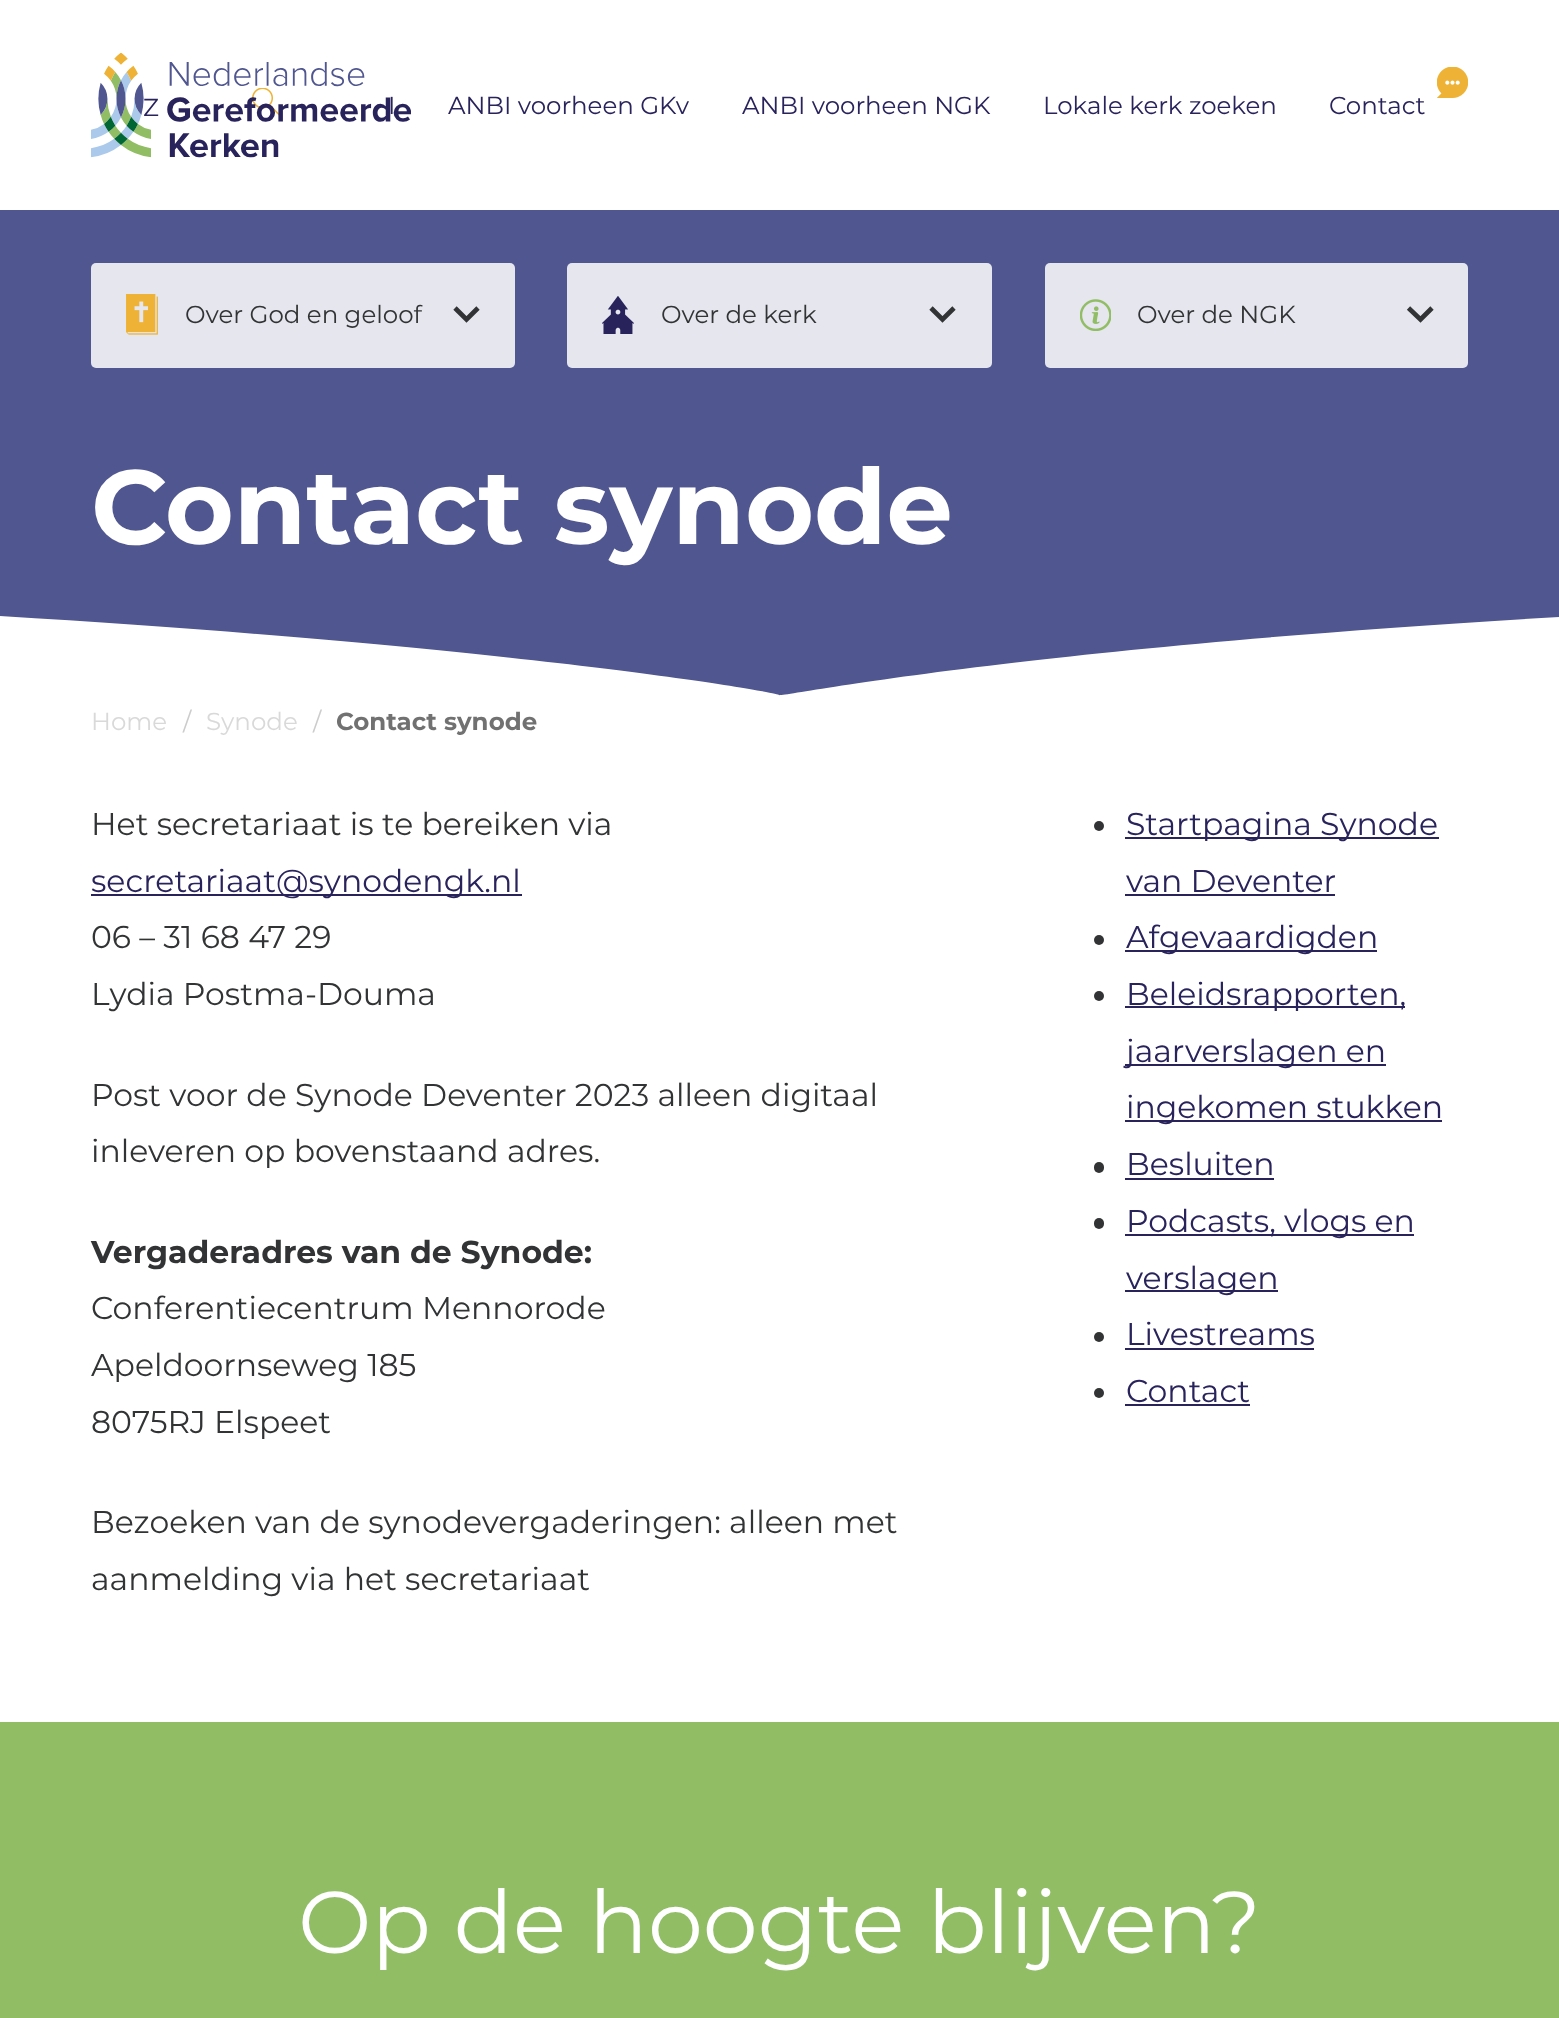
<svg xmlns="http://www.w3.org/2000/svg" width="1559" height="2018">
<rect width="100%" height="100%" fill="#fff"/>
<text x="143" y="116" style="font-family:Montserrat;font-size:24.5px;fill:#29235c">Z</text>
<image x="252" y="88" width="27" height="28" href="media/2.png"/>
<text x="388" y="114" style="font-family:Montserrat;font-size:24.5px;fill:#29235c">I</text>
<image x="91" y="53" width="320" height="105" href="media/1.png"/>
<text x="448" y="114" style="font-family:Montserrat;font-size:24.5px;fill:#29235c">ANBI voorheen GKv</text>
<text x="742" y="114" style="font-family:Montserrat;font-size:24.5px;fill:#29235c">ANBI voorheen NGK</text>
<text x="1043" y="114" style="font-family:Montserrat;font-size:24.5px;fill:#29235c">Lokale kerk zoeken</text>
<image x="1437" y="67" width="31" height="31" href="media/3.png"/>
<text x="1329" y="114" style="font-family:Montserrat;font-size:24.5px;fill:#29235c">Contact</text>
<rect y="210" width="1559" height="486" fill="#50568f"/>
<rect x="91" y="263" width="424" height="105" rx="5" fill="#e5e6ee"/>
<image x="126" y="294" width="32" height="41" href="media/4.png"/>
<text x="185" y="323" style="font-family:Montserrat;font-size:24.5px;fill:#323334">Over God en geloof</text>
<path d="M455 308l11.5 11.5l11.5-11.5" fill="none" stroke="#323334" stroke-width="4.7"/>
<rect x="567" y="263" width="425" height="105" rx="5" fill="#e5e6ee"/>
<image x="602" y="296" width="32" height="38" href="media/5.png"/>
<text x="661" y="323" style="font-family:Montserrat;font-size:24.5px;fill:#323334">Over de kerk</text>
<path d="M931 308l11.5 11.5l11.5-11.5" fill="none" stroke="#323334" stroke-width="4.7"/>
<rect x="1045" y="263" width="423" height="105" rx="5" fill="#e5e6ee"/>
<image x="1080" y="299" width="31" height="32" href="media/6.png"/>
<text x="1137" y="323" style="font-family:Montserrat;font-size:24.5px;fill:#323334">Over de NGK</text>
<path d="M1408.5 308l12 11.5l11.5-11.5" fill="none" stroke="#323334" stroke-width="4.7"/>
<text x="91" y="544" style="font-family:Montserrat;font-size:105px;font-weight:bold;fill:#fff">Contact synode</text>
<path d="M779 695c1 4 415-89 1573-105v112h-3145l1-95l-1-19c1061 15 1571 103 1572 107z" fill="#fff"/>
<text x="91" y="730" style="font-family:Montserrat;font-size:24.5px;fill:#d9d9d9">Home</text>
<text x="183" y="730" style="font-family:Montserrat;font-size:24.5px;fill:#ccc">/</text>
<text x="206" y="730" style="font-family:Montserrat;font-size:24.5px;fill:#d9d9d9">Synode</text>
<text x="313" y="730" style="font-family:Montserrat;font-size:24.5px;fill:#ccc">/</text>
<text x="336" y="730" style="font-family:Montserrat;font-size:24.5px;font-weight:bold;fill:#717171">Contact synode</text>
<text x="91" y="835" style="font-family:Montserrat;font-size:31.5px;fill:#323334">Het secretariaat is te bereiken via</text>
<rect x="91" y="894" width="431" height="2" fill="#29235c"/>
<text x="91" y="892" style="font-family:Montserrat;font-size:31.5px;fill:#29235c">secretariaat@synodengk.nl</text>
<text x="91" y="948" style="font-family:Montserrat;font-size:31.5px;fill:#323334">06 – 31 68 47 29</text>
<text x="91" y="1005" style="font-family:Montserrat;font-size:31.5px;fill:#323334">Lydia Postma-Douma</text>
<text x="91" y="1106" style="font-family:Montserrat;font-size:31.5px;fill:#323334">Post voor de Synode Deventer 2023 alleen digitaal</text>
<text x="91" y="1162" style="font-family:Montserrat;font-size:31.5px;fill:#323334">inleveren op bovenstaand adres.</text>
<text x="91" y="1263" style="font-family:Montserrat;font-size:31.5px;font-weight:bold;fill:#323334">Vergaderadres van de Synode:</text>
<text x="91" y="1319" style="font-family:Montserrat;font-size:31.5px;fill:#323334">Conferentiecentrum Mennorode</text>
<text x="91" y="1376" style="font-family:Montserrat;font-size:31.5px;fill:#323334">Apeldoornseweg 185</text>
<text x="91" y="1433" style="font-family:Montserrat;font-size:31.5px;fill:#323334">8075RJ Elspeet</text>
<text x="91" y="1533" style="font-family:Montserrat;font-size:31.5px;fill:#323334">Bezoeken van de synodevergaderingen: alleen met</text>
<text x="91" y="1590" style="font-family:Montserrat;font-size:31.5px;fill:#323334">aanmelding via het secretariaat</text>
<circle cx="1099" cy="826" r="5" fill="#323334"/>
<rect x="1125" y="837" width="314" height="2" fill="#29235c"/>
<text x="1126" y="835" style="font-family:Montserrat;font-size:31.5px;fill:#29235c">Startpagina Synode</text>
<text x="1126" y="892" style="font-family:Montserrat;font-size:31.5px;fill:#29235c">van Deventer</text>
<rect x="1125" y="894" width="210" height="2" fill="#29235c"/>
<circle cx="1099" cy="940" r="5" fill="#323334"/>
<rect x="1125" y="950" width="252" height="2" fill="#29235c"/>
<text x="1126" y="948" style="font-family:Montserrat;font-size:31.5px;fill:#29235c">Afgevaardigden</text>
<circle cx="1099" cy="996" r="5" fill="#323334"/>
<rect x="1125" y="1006" width="280" height="2" fill="#29235c"/>
<text x="1126" y="1005" style="font-family:Montserrat;font-size:31.5px;fill:#29235c">Beleidsrapporten,</text>
<rect x="1125" y="1064" width="261" height="2" fill="#29235c"/>
<text x="1126" y="1062" style="font-family:Montserrat;font-size:31.5px;fill:#29235c">jaarverslagen en</text>
<rect x="1125" y="1120" width="317" height="2" fill="#29235c"/>
<text x="1126" y="1118" style="font-family:Montserrat;font-size:31.5px;fill:#29235c">ingekomen stukken</text>
<rect x="1094" y="1162" width="10" height="11" rx="5" fill="#323334"/>
<text x="1126" y="1175" style="font-family:Montserrat;font-size:31.5px;fill:#29235c">Besluiten</text>
<rect x="1125" y="1178" width="149" height="2" fill="#29235c"/>
<rect x="1094" y="1218" width="10" height="11" rx="5" fill="#323334"/>
<rect x="1125" y="1234" width="289" height="2" fill="#29235c"/>
<text x="1126" y="1232" style="font-family:Montserrat;font-size:31.5px;fill:#29235c">Podcasts, vlogs en</text>
<rect x="1125" y="1290" width="153" height="2" fill="#29235c"/>
<text x="1126" y="1289" style="font-family:Montserrat;font-size:31.5px;fill:#29235c">verslagen</text>
<circle cx="1099" cy="1337" r="5" fill="#323334"/>
<text x="1126" y="1345" style="font-family:Montserrat;font-size:31.5px;fill:#29235c">Livestreams</text>
<rect x="1125" y="1348" width="189" height="2" fill="#29235c"/>
<circle cx="1099" cy="1393" r="5" fill="#323334"/>
<text x="1126" y="1402" style="font-family:Montserrat;font-size:31.5px;fill:#29235c">Contact</text>
<rect x="1125" y="1404" width="125" height="2" fill="#29235c"/>
<rect y="1722" width="1559" height="296" fill="#91bd65"/>
<text x="298" y="1953" style="font-family:Montserrat;font-size:87.5px;fill:#fff">Op de hoogte blijven?</text>
</svg>
